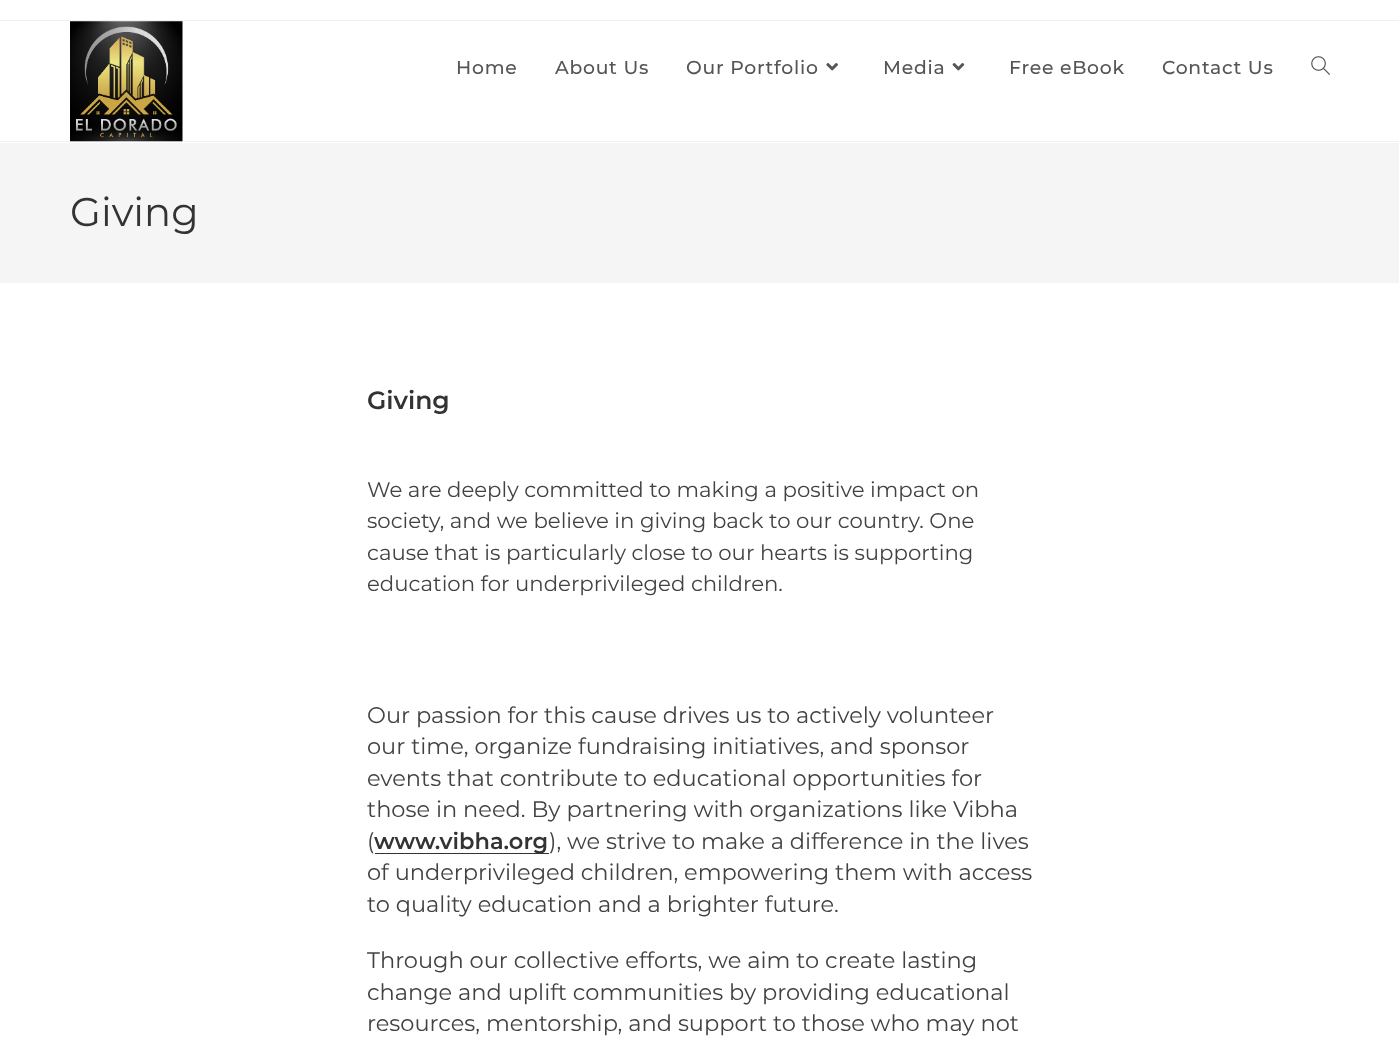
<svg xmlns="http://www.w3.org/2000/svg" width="1399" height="1047">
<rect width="100%" height="100%" fill="#fff"/>
<rect y="20" width="1399" height="1" fill="#f1f1f1"/>
<rect y="141" width="1399" height="1" fill="#f1f1f1"/>
<image x="70" y="21" width="113" height="121" href="media/1.png"/>
<text x="456" y="74" style="font-family:Montserrat;font-size:18.75px;font-weight:500;letter-spacing:0.75px;fill:#555">Home</text>
<text x="555" y="74" style="font-family:Montserrat;font-size:18.75px;font-weight:500;letter-spacing:0.75px;fill:#555">About Us</text>
<text x="686" y="74" style="font-family:Montserrat;font-size:18.75px;font-weight:500;letter-spacing:0.75px;fill:#555">Our Portfolio</text>
<image x="826" y="63" width="12" height="8" href="media/2.png"/>
<text x="883" y="74" style="font-family:Montserrat;font-size:18.75px;font-weight:500;letter-spacing:0.75px;fill:#555">Media</text>
<image x="952" y="63" width="13" height="8" href="media/3.png"/>
<text x="1009" y="74" style="font-family:Montserrat;font-size:18.75px;font-weight:500;letter-spacing:0.75px;fill:#555">Free eBook</text>
<text x="1162" y="74" style="font-family:Montserrat;font-size:18.75px;font-weight:500;letter-spacing:0.75px;fill:#555">Contact Us</text>
<image x="1311" y="56" width="19" height="19" href="media/4.png"/>
<rect y="143" width="1399" height="140" fill="#f5f5f5"/>
<text x="70" y="226" style="font-family:Montserrat;font-size:40px;fill:#333">Giving</text>
<text x="367" y="409" style="font-family:Montserrat;font-size:25px;font-weight:600;fill:#333">Giving</text>
<text x="367" y="497" style="font-family:Montserrat;font-size:21.25px;fill:#424242">We are deeply committed to making a positive impact on</text>
<text x="367" y="528" style="font-family:Montserrat;font-size:21.25px;fill:#424242">society, and we believe in giving back to our country. One</text>
<text x="367" y="560" style="font-family:Montserrat;font-size:21.25px;fill:#424242">cause that is particularly close to our hearts is supporting</text>
<text x="367" y="591" style="font-family:Montserrat;font-size:21.25px;fill:#424242">education for underprivileged children.</text>
<text x="367" y="723" style="font-family:Montserrat;font-size:22.5px;fill:#424242">Our passion for this cause drives us to actively volunteer</text>
<text x="367" y="754" style="font-family:Montserrat;font-size:22.5px;fill:#424242">our time, organize fundraising initiatives, and sponsor</text>
<text x="367" y="786" style="font-family:Montserrat;font-size:22.5px;fill:#424242">events that contribute to educational opportunities for</text>
<text x="367" y="817" style="font-family:Montserrat;font-size:22.5px;fill:#424242">those in need. By partnering with organizations like Vibha</text>
<text x="367" y="849" style="font-family:Montserrat;font-size:22.5px;fill:#424242">(</text>
<rect x="375" y="853" width="174" height="1" fill="#333"/>
<text x="374" y="849" style="font-family:Montserrat;font-size:22.5px;font-weight:600;fill:#333">www.vibha.org</text>
<text x="549" y="849" style="font-family:Montserrat;font-size:22.5px;fill:#424242">), we strive to make a difference in the lives</text>
<text x="367" y="880" style="font-family:Montserrat;font-size:22.5px;fill:#424242">of underprivileged children, empowering them with access</text>
<text x="367" y="912" style="font-family:Montserrat;font-size:22.5px;fill:#424242">to quality education and a brighter future.</text>
<text x="367" y="968" style="font-family:Montserrat;font-size:22.5px;fill:#424242">Through our collective efforts, we aim to create lasting</text>
<text x="367" y="1000" style="font-family:Montserrat;font-size:22.5px;fill:#424242">change and uplift communities by providing educational</text>
<text x="367" y="1031" style="font-family:Montserrat;font-size:22.5px;fill:#424242">resources, mentorship, and support to those who may not</text>
</svg>
